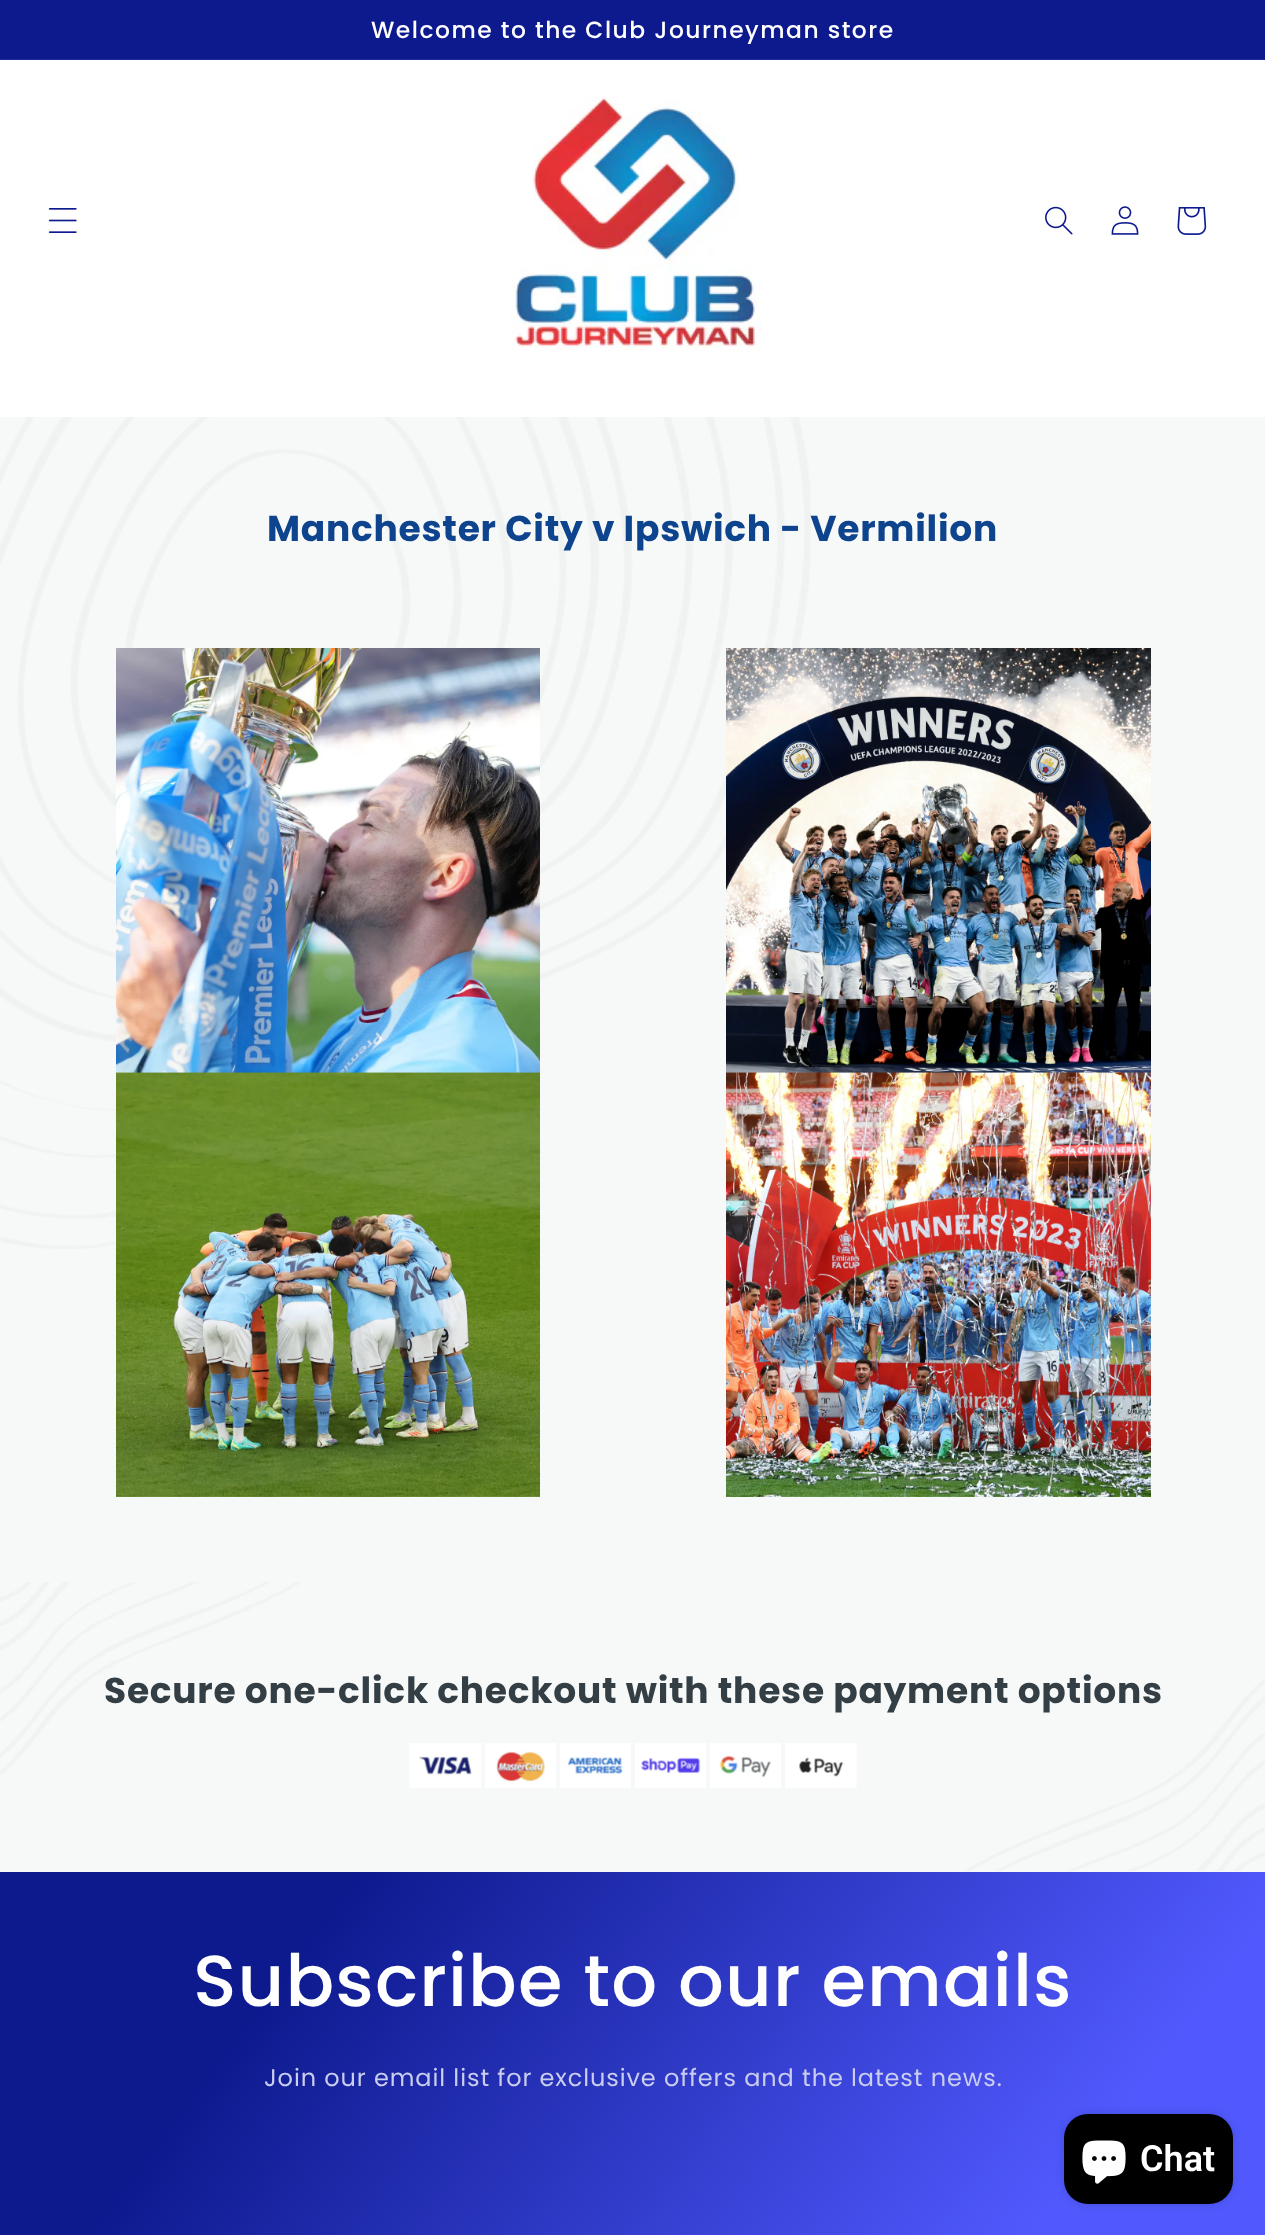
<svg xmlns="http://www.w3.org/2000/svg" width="1265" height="2235">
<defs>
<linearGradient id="g1" gradientUnits="userSpaceOnUse" x1="-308" y1="409" x2="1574" y2="1826"><stop offset="0.6" stop-color="#0d1a8e"/><stop offset="0.92" stop-color="#5159fe"/></linearGradient>
<linearGradient id="g2" gradientUnits="userSpaceOnUse" x1="-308" y1="409" x2="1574" y2="1826"><stop offset="0.6" stop-color="#202c97"/><stop offset="0.92" stop-color="#5f66fe"/></linearGradient>
</defs>
<rect width="100%" height="100%" fill="#fff"/>
<rect width="1265" height="59" fill="url(#g1)"/>
<rect y="59" width="1265" height="1" fill="url(#g2)"/>
<text x="371" y="38" style="font-family:Poppins;font-size:23.4px;font-weight:500;letter-spacing:1.5px;fill:#fff">Welcome to the Club Journeyman store</text>
<image x="48" y="208" width="29" height="25" href="media/1.png"/>
<image x="510" y="97" width="252" height="254" href="media/2.png"/>
<image x="1045" y="206" width="28" height="29" href="media/3.png"/>
<image x="1111" y="206" width="28" height="29" href="media/4.png"/>
<image x="1177" y="207" width="30" height="28" href="media/5.png"/>
<rect y="417" width="1265" height="1455" fill="#f7f9f8"/>
<image x="0" y="417" width="811" height="832" href="media/6.png"/>
<text x="267" y="541" style="font-family:Poppins;font-size:36px;font-weight:bold;letter-spacing:0.75px;fill:#0e438e">Manchester City v Ipswich - Vermilion</text>
<image x="116" y="648" width="424" height="425" href="media/7.png"/>
<image x="726" y="648" width="425" height="425" href="media/8.png"/>
<image x="116" y="1072" width="424" height="425" href="media/9.png"/>
<image x="726" y="1072" width="425" height="425" href="media/10.png"/>
<image x="0" y="1582" width="1265" height="289" href="media/11.png"/>
<text x="104" y="1703" style="font-family:Poppins;font-size:36px;font-weight:bold;letter-spacing:0.75px;fill:#333e45">Secure one-click checkout with these payment options</text>
<image x="409" y="1743" width="72" height="45" href="media/12.png"/>
<image x="485" y="1743" width="71" height="45" href="media/13.png"/>
<image x="560" y="1743" width="71" height="45" href="media/14.png"/>
<image x="635" y="1743" width="71" height="45" href="media/15.png"/>
<image x="710" y="1743" width="71" height="45" href="media/16.png"/>
<image x="785" y="1743" width="72" height="45" href="media/17.png"/>
<rect y="1872" width="1265" height="341" fill="url(#g1)"/>
<text x="193" y="2006" style="font-family:Poppins;font-size:72px;font-weight:500;letter-spacing:1.1px;fill:#fff">Subscribe to our emails</text>
<text x="264" y="2086" style="font-family:Poppins;font-size:24px;letter-spacing:0.9px;fill:#cacdf0">Join our email list for exclusive offers and the latest news.</text>
<rect y="2213" width="1265" height="22" fill="url(#g1)"/>
<rect x="1064" y="2114" width="169" height="90" rx="24" fill="#00000026" filter="blur(4px)"/>
<rect x="1064" y="2114" width="169" height="90" rx="24" fill="#000"/>
<image x="1082" y="2140" width="44" height="44" href="media/18.png"/>
<text x="1140" y="2171" style="font-family:Roboto;font-size:36px;font-weight:600;fill:#fff">Chat</text>
</svg>
